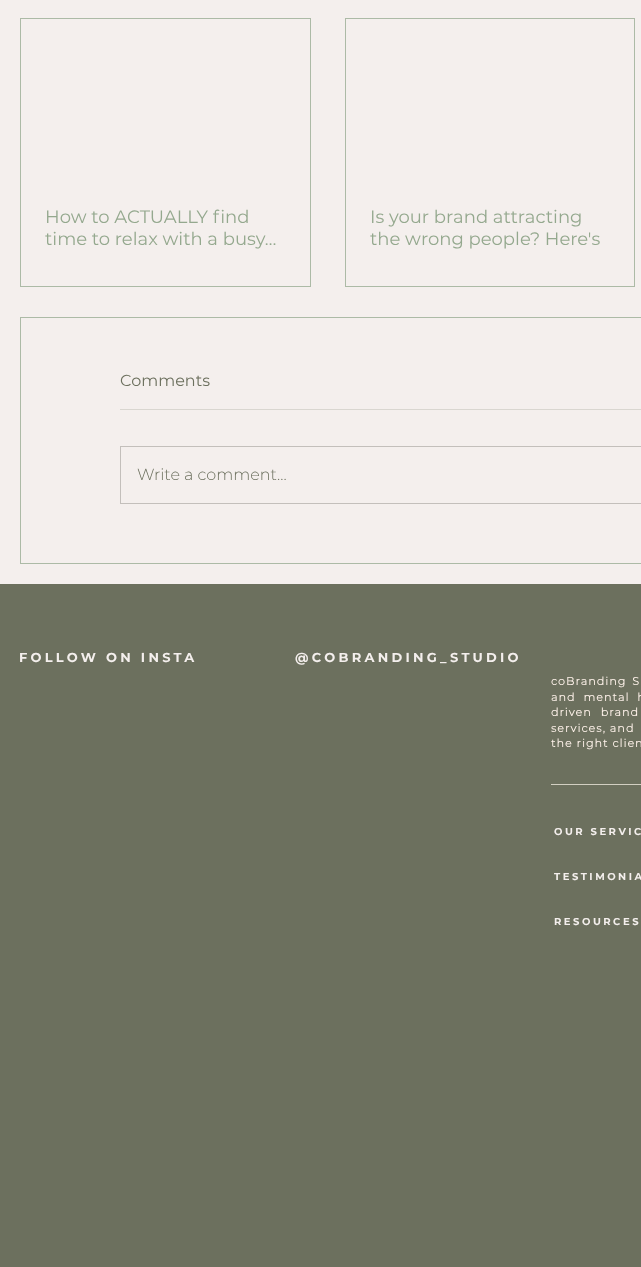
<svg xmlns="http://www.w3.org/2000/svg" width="641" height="1267">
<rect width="100%" height="100%" fill="#f4efed"/>
<rect x="20.5" y="18.5" width="290" height="268" fill="none" stroke="#acbaa6"/>
<text x="45" y="223" style="font-family:Montserrat;font-size:18px;fill:#94a88e">How to ACTUALLY find</text>
<text x="45" y="245" style="font-family:Montserrat;font-size:18px;fill:#94a88e">time to relax with a busy…</text>
<rect x="345.5" y="18.5" width="289" height="268" fill="none" stroke="#acbaa6"/>
<text x="370" y="223" style="font-family:Montserrat;font-size:18px;fill:#94a88e">Is your brand attracting</text>
<text x="370" y="245" style="font-family:Montserrat;font-size:18px;fill:#94a88e">the wrong people? Here's</text>
<rect x="20.5" y="317.5" width="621" height="246" fill="none" stroke="#acbaa6"/>
<text x="120" y="386" style="font-family:Montserrat;font-size:16px;fill:#6c705e">Comments</text>
<rect x="120" y="409" width="521" height="1" fill="#d9d6d0"/>
<rect x="120.5" y="446.5" width="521" height="57" fill="none" stroke="#c3bfbb"/>
<text x="137" y="480" style="font-family:Montserrat;font-size:16px;font-weight:300;fill:#6c705e">Write a comment...</text>
<rect y="584" width="641" height="683" fill="#6c705e"/>
<text x="19" y="662" style="font-family:Montserrat;font-size:13px;font-weight:bold;letter-spacing:3.25px;fill:#f4efed">FOLLOW ON INSTA</text>
<text x="295" y="662" style="font-family:Montserrat;font-size:13px;font-weight:bold;letter-spacing:3.25px;fill:#f4efed">@COBRANDING_STUDIO</text>
<text x="551" y="685" word-spacing="2" style="font-family:'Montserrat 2';font-size:11px;font-weight:bold;letter-spacing:1.1px;fill:#fff3eb">coBranding S</text>
<text x="551" y="701" word-spacing="4" style="font-family:'Montserrat 2';font-size:11px;font-weight:bold;letter-spacing:1.1px;fill:#fff3eb">and mental h</text>
<text x="551" y="716" word-spacing="5" style="font-family:'Montserrat 2';font-size:11px;font-weight:bold;letter-spacing:1.1px;fill:#fff3eb">driven brand</text>
<text x="551" y="732" style="font-family:'Montserrat 2';font-size:11px;font-weight:bold;letter-spacing:1.1px;fill:#fff3eb">services, and</text>
<text x="551" y="747" style="font-family:'Montserrat 2';font-size:11px;font-weight:bold;letter-spacing:1.1px;fill:#fff3eb">the right clien</text>
<rect x="551" y="784" width="90" height="1" fill="#d2cfc2"/>
<text x="554" y="835" style="font-family:Montserrat;font-size:10px;font-weight:bold;letter-spacing:2.5px;fill:#f4efed">OUR SERVIC</text>
<text x="554" y="880" style="font-family:Montserrat;font-size:10px;font-weight:bold;letter-spacing:2.5px;fill:#f4efed">TESTIMONIA</text>
<text x="554" y="925" style="font-family:Montserrat;font-size:10px;font-weight:bold;letter-spacing:2.5px;fill:#f4efed">RESOURCES</text>
</svg>
